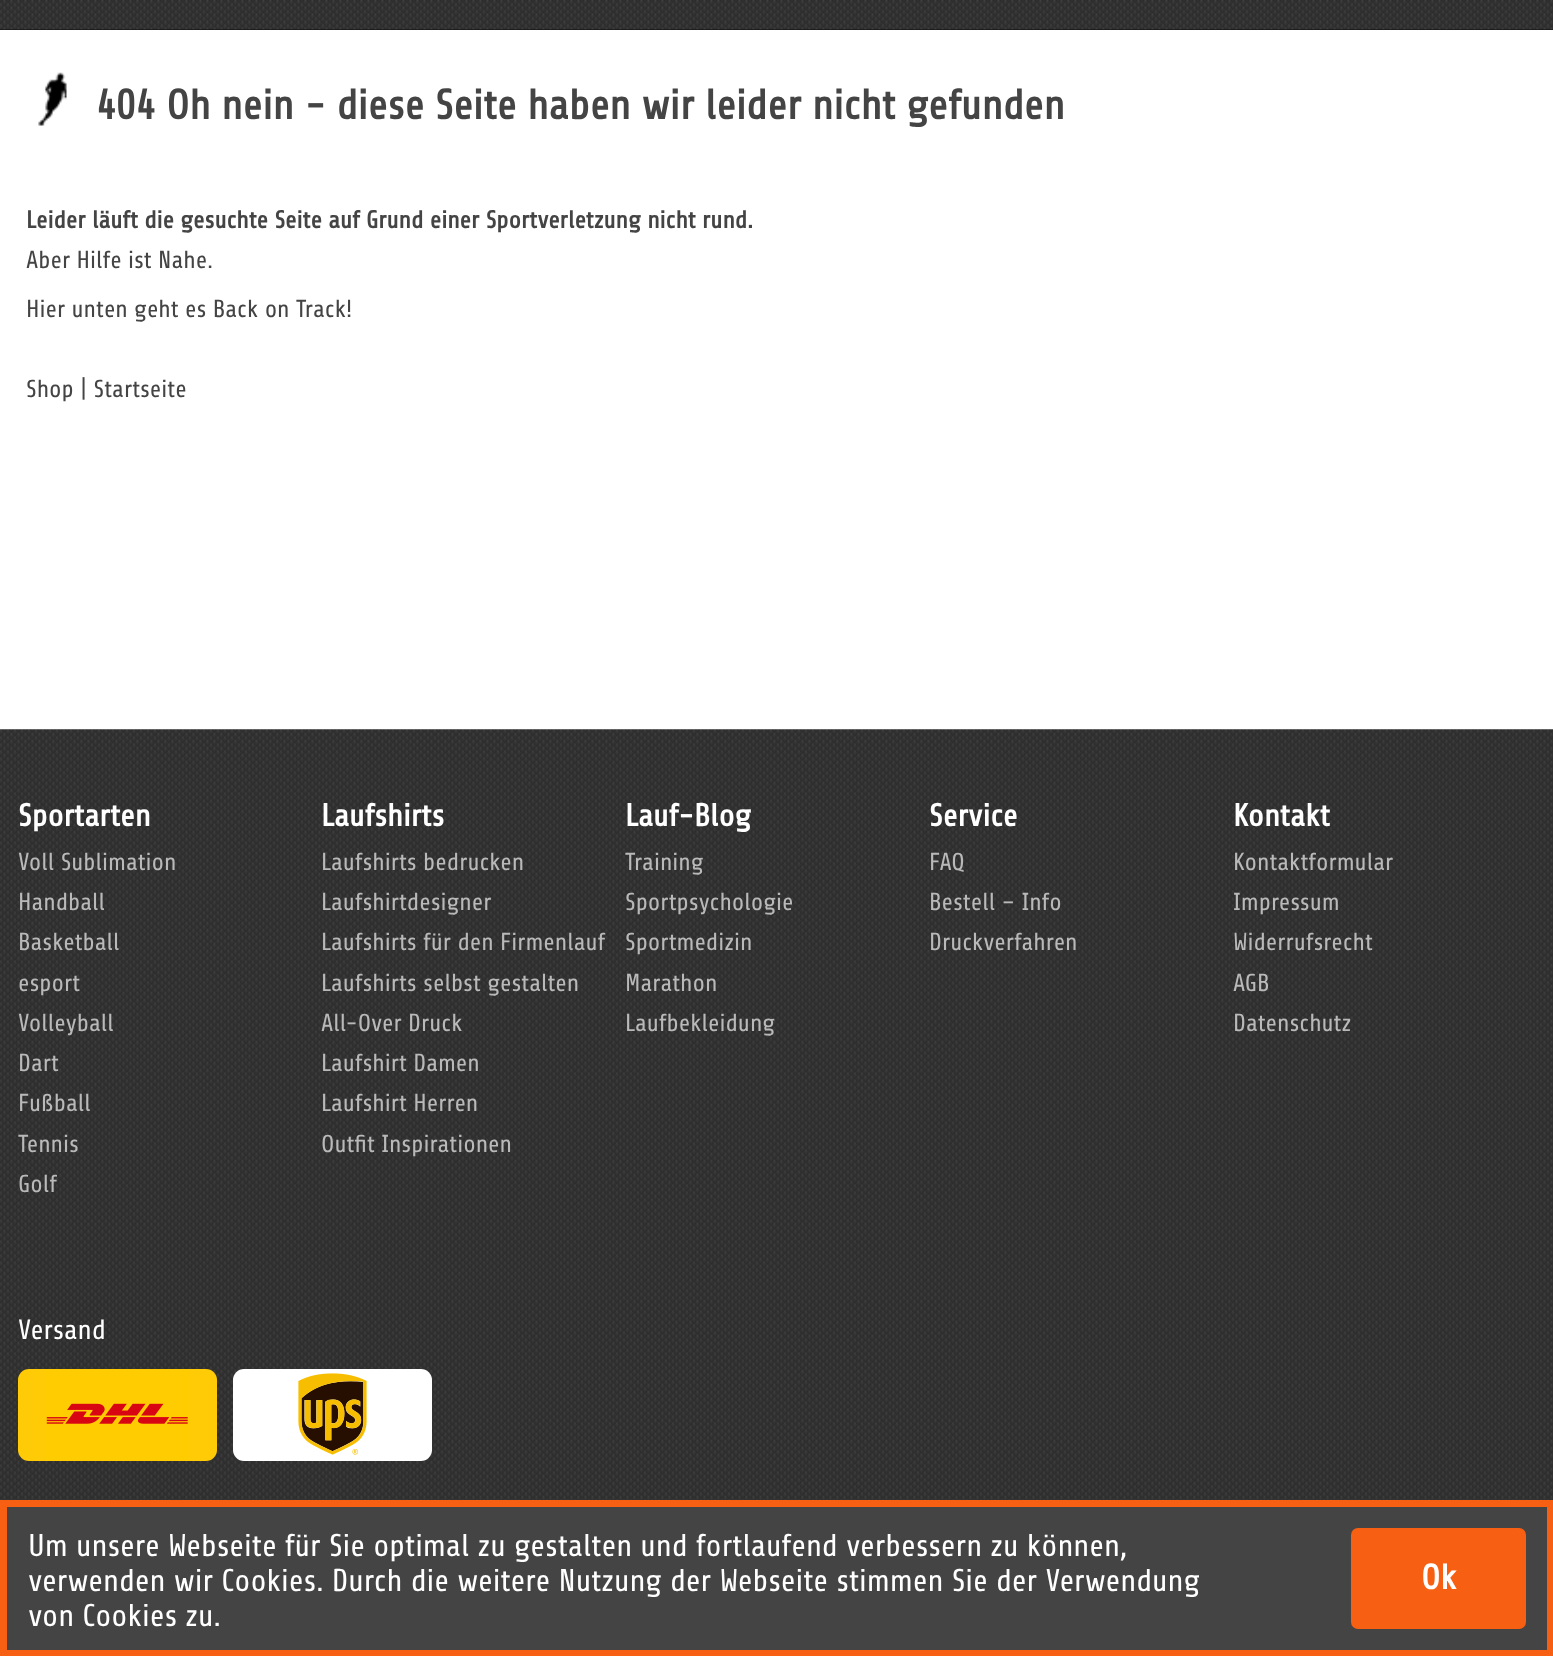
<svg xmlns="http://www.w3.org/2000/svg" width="1553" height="1656">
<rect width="100%" height="100%" fill="#fff"/>
<rect y="29" width="1553" height="1" fill="#181818"/>
<image x="0" y="0" width="1553" height="30" href="media/1.png"/>
<image x="38" y="72" width="29" height="54" href="media/2.png"/>
<text x="96" y="119" style="font-family:Share;font-size:42px;font-weight:bold;fill:#444">404 Oh nein - diese Seite haben wir leider nicht gefunden</text>
<text x="26" y="228" style="font-family:Share;font-size:24.5px;font-weight:bold;fill:#444">Leider läuft die gesuchte Seite auf Grund einer Sportverletzung nicht rund.</text>
<text x="26" y="268" style="font-family:Share;font-size:24.5px;fill:#444">Aber Hilfe ist Nahe.</text>
<text x="26" y="317" style="font-family:Share;font-size:24.5px;fill:#444">Hier unten geht es Back on Track!</text>
<text x="26" y="397" style="font-family:Share;font-size:24.5px;fill:#444">Shop | Startseite</text>
<image x="0" y="729" width="1553" height="771" href="media/3.png"/>
<text x="18" y="826" style="font-family:Share;font-size:31.5px;font-weight:bold;fill:#fff">Sportarten</text>
<text x="18" y="870" style="font-family:Share;font-size:24.5px;fill:#b9b9b9">Voll Sublimation</text>
<text x="18" y="910" style="font-family:Share;font-size:24.5px;fill:#b9b9b9">Handball</text>
<text x="18" y="950" style="font-family:Share;font-size:24.5px;fill:#b9b9b9">Basketball</text>
<text x="18" y="991" style="font-family:Share;font-size:24.5px;fill:#b9b9b9">esport</text>
<text x="18" y="1031" style="font-family:Share;font-size:24.5px;fill:#b9b9b9">Volleyball</text>
<text x="18" y="1071" style="font-family:Share;font-size:24.5px;fill:#b9b9b9">Dart</text>
<text x="18" y="1111" style="font-family:Share;font-size:24.5px;fill:#b9b9b9">Fußball</text>
<text x="18" y="1152" style="font-family:Share;font-size:24.5px;fill:#b9b9b9">Tennis</text>
<text x="18" y="1192" style="font-family:Share;font-size:24.5px;fill:#b9b9b9">Golf</text>
<text x="321" y="826" style="font-family:Share;font-size:31.5px;font-weight:bold;fill:#fff">Laufshirts</text>
<text x="321" y="870" style="font-family:Share;font-size:24.5px;fill:#b9b9b9">Laufshirts bedrucken</text>
<text x="321" y="910" style="font-family:Share;font-size:24.5px;fill:#b9b9b9">Laufshirtdesigner</text>
<text x="321" y="950" style="font-family:Share;font-size:24.5px;fill:#b9b9b9">Laufshirts für den Firmenlauf</text>
<text x="321" y="991" style="font-family:Share;font-size:24.5px;fill:#b9b9b9">Laufshirts selbst gestalten</text>
<text x="321" y="1031" style="font-family:Share;font-size:24.5px;fill:#b9b9b9">All-Over Druck</text>
<text x="321" y="1071" style="font-family:Share;font-size:24.5px;fill:#b9b9b9">Laufshirt Damen</text>
<text x="321" y="1111" style="font-family:Share;font-size:24.5px;fill:#b9b9b9">Laufshirt Herren</text>
<text x="321" y="1152" style="font-family:Share;font-size:24.5px;fill:#b9b9b9">Outfit Inspirationen</text>
<text x="625" y="826" style="font-family:Share;font-size:31.5px;font-weight:bold;fill:#fff">Lauf-Blog</text>
<text x="625" y="870" style="font-family:Share;font-size:24.5px;fill:#b9b9b9">Training</text>
<text x="625" y="910" style="font-family:Share;font-size:24.5px;fill:#b9b9b9">Sportpsychologie</text>
<text x="625" y="950" style="font-family:Share;font-size:24.5px;fill:#b9b9b9">Sportmedizin</text>
<text x="625" y="991" style="font-family:Share;font-size:24.5px;fill:#b9b9b9">Marathon</text>
<text x="625" y="1031" style="font-family:Share;font-size:24.5px;fill:#b9b9b9">Laufbekleidung</text>
<text x="929" y="826" style="font-family:Share;font-size:31.5px;font-weight:bold;fill:#fff">Service</text>
<text x="929" y="870" style="font-family:Share;font-size:24.5px;fill:#b9b9b9">FAQ</text>
<text x="929" y="910" style="font-family:Share;font-size:24.5px;fill:#b9b9b9">Bestell – Info</text>
<text x="929" y="950" style="font-family:Share;font-size:24.5px;fill:#b9b9b9">Druckverfahren</text>
<text x="1233" y="826" style="font-family:Share;font-size:31.5px;font-weight:bold;fill:#fff">Kontakt</text>
<text x="1233" y="870" style="font-family:Share;font-size:24.5px;fill:#b9b9b9">Kontaktformular</text>
<text x="1233" y="910" style="font-family:Share;font-size:24.5px;fill:#b9b9b9">Impressum</text>
<text x="1233" y="950" style="font-family:Share;font-size:24.5px;fill:#b9b9b9">Widerrufsrecht</text>
<text x="1233" y="991" style="font-family:Share;font-size:24.5px;fill:#b9b9b9">AGB</text>
<text x="1233" y="1031" style="font-family:Share;font-size:24.5px;fill:#b9b9b9">Datenschutz</text>
<text x="18" y="1339" style="font-family:Share;font-size:28px;fill:#fff">Versand</text>
<rect x="18" y="1369" width="199" height="92" rx="11" fill="#ffcb07"/>
<image x="45" y="1369" width="145" height="92" href="media/4.png"/>
<rect x="233" y="1369" width="199" height="92" rx="11" fill="#fff"/>
<image x="298" y="1373" width="69" height="82" href="media/5.png"/>
<rect x="3.5" y="1503.5" width="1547" height="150" fill="#444" stroke="#f75f13" stroke-width="7"/>
<text x="28" y="1556" style="font-family:Share;font-size:31.5px;fill:#fff">Um unsere Webseite für Sie optimal zu gestalten und fortlaufend verbessern zu können,</text>
<text x="28" y="1591" style="font-family:Share;font-size:31.5px;fill:#fff">verwenden wir Cookies. Durch die weitere Nutzung der Webseite stimmen Sie der Verwendung</text>
<text x="28" y="1626" style="font-family:Share;font-size:31.5px;fill:#fff">von Cookies zu.</text>
<rect x="1351" y="1528" width="175" height="101" rx="7" fill="#f75f13"/>
<text x="1421" y="1589" style="font-family:Share;font-size:35px;font-weight:bold;fill:#fff">Ok</text>
</svg>
